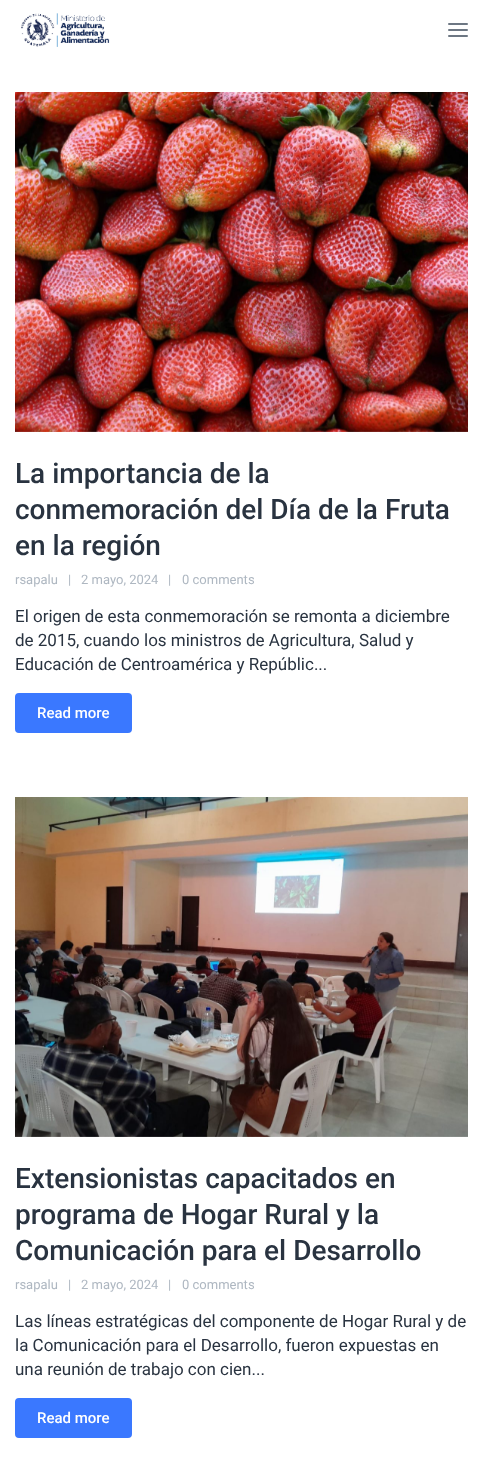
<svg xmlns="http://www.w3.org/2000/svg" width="483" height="1479">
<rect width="100%" height="100%" fill="#fff"/>
<image x="21" y="13" width="89" height="34" href="media/1.png"/>
<rect x="448" y="29" width="20" height="2" rx="1" fill="#6d7783"/>
<rect x="448" y="23" width="20" height="2" rx="1" fill="#6d7783"/>
<rect x="448" y="35" width="20" height="2" rx="1" fill="#6d7783"/>
<image x="15" y="92" width="453" height="340" href="media/2.png"/>
<text x="15" y="483" style="font-family:Roboto;font-size:28px;font-weight:500;fill:#293340">La importancia de la</text>
<text x="15" y="519" style="font-family:Roboto;font-size:28px;font-weight:500;fill:#293340">conmemoración del Día de la Fruta</text>
<text x="15" y="555" style="font-family:Roboto;font-size:28px;font-weight:500;fill:#293340">en la región</text>
<text x="15" y="584" style="font-family:Roboto;font-size:13px;fill:#aeb7c1">rsapalu</text>
<text x="68" y="584" style="font-family:Roboto;font-size:13px;fill:#aeb7c1">|</text>
<text x="81" y="584" style="font-family:Roboto;font-size:13px;fill:#aeb7c1">2 mayo, 2024</text>
<text x="168" y="584" style="font-family:Roboto;font-size:13px;fill:#aeb7c1">|</text>
<text x="182" y="584" style="font-family:Roboto;font-size:13px;fill:#aeb7c1">0 comments</text>
<text x="15" y="622" style="font-family:Roboto;font-size:17px;fill:#293340">El origen de esta conmemoración se remonta a diciembre</text>
<text x="15" y="646" style="font-family:Roboto;font-size:17px;fill:#293340">de 2015, cuando los ministros de Agricultura, Salud y</text>
<text x="15" y="670" style="font-family:Roboto;font-size:17px;fill:#293340">Educación de Centroamérica y Repúblic...</text>
<rect x="16" y="694" width="115" height="38" rx="3" fill="#3a78ff" stroke="#3a78ff" stroke-width="2"/>
<text x="37" y="718" style="font-family:Roboto;font-size:15px;font-weight:500;fill:#fff">Read more</text>
<image x="15" y="797" width="453" height="340" href="media/3.png"/>
<text x="15" y="1188" style="font-family:Roboto;font-size:28px;font-weight:500;fill:#293340">Extensionistas capacitados en</text>
<text x="15" y="1224" style="font-family:Roboto;font-size:28px;font-weight:500;fill:#293340">programa de Hogar Rural y la</text>
<text x="15" y="1260" style="font-family:Roboto;font-size:28px;font-weight:500;fill:#293340">Comunicación para el Desarrollo</text>
<text x="15" y="1289" style="font-family:Roboto;font-size:13px;fill:#aeb7c1">rsapalu</text>
<text x="68" y="1289" style="font-family:Roboto;font-size:13px;fill:#aeb7c1">|</text>
<text x="81" y="1289" style="font-family:Roboto;font-size:13px;fill:#aeb7c1">2 mayo, 2024</text>
<text x="168" y="1289" style="font-family:Roboto;font-size:13px;fill:#aeb7c1">|</text>
<text x="182" y="1289" style="font-family:Roboto;font-size:13px;fill:#aeb7c1">0 comments</text>
<text x="15" y="1327" style="font-family:Roboto;font-size:17px;fill:#293340">Las líneas estratégicas del componente de Hogar Rural y de</text>
<text x="15" y="1351" style="font-family:Roboto;font-size:17px;fill:#293340">la Comunicación para el Desarrollo, fueron expuestas en</text>
<text x="15" y="1375" style="font-family:Roboto;font-size:17px;fill:#293340">una reunión de trabajo con cien...</text>
<rect x="16" y="1399" width="115" height="38" rx="3" fill="#3a78ff" stroke="#3a78ff" stroke-width="2"/>
<text x="37" y="1423" style="font-family:Roboto;font-size:15px;font-weight:500;fill:#fff">Read more</text>
</svg>
